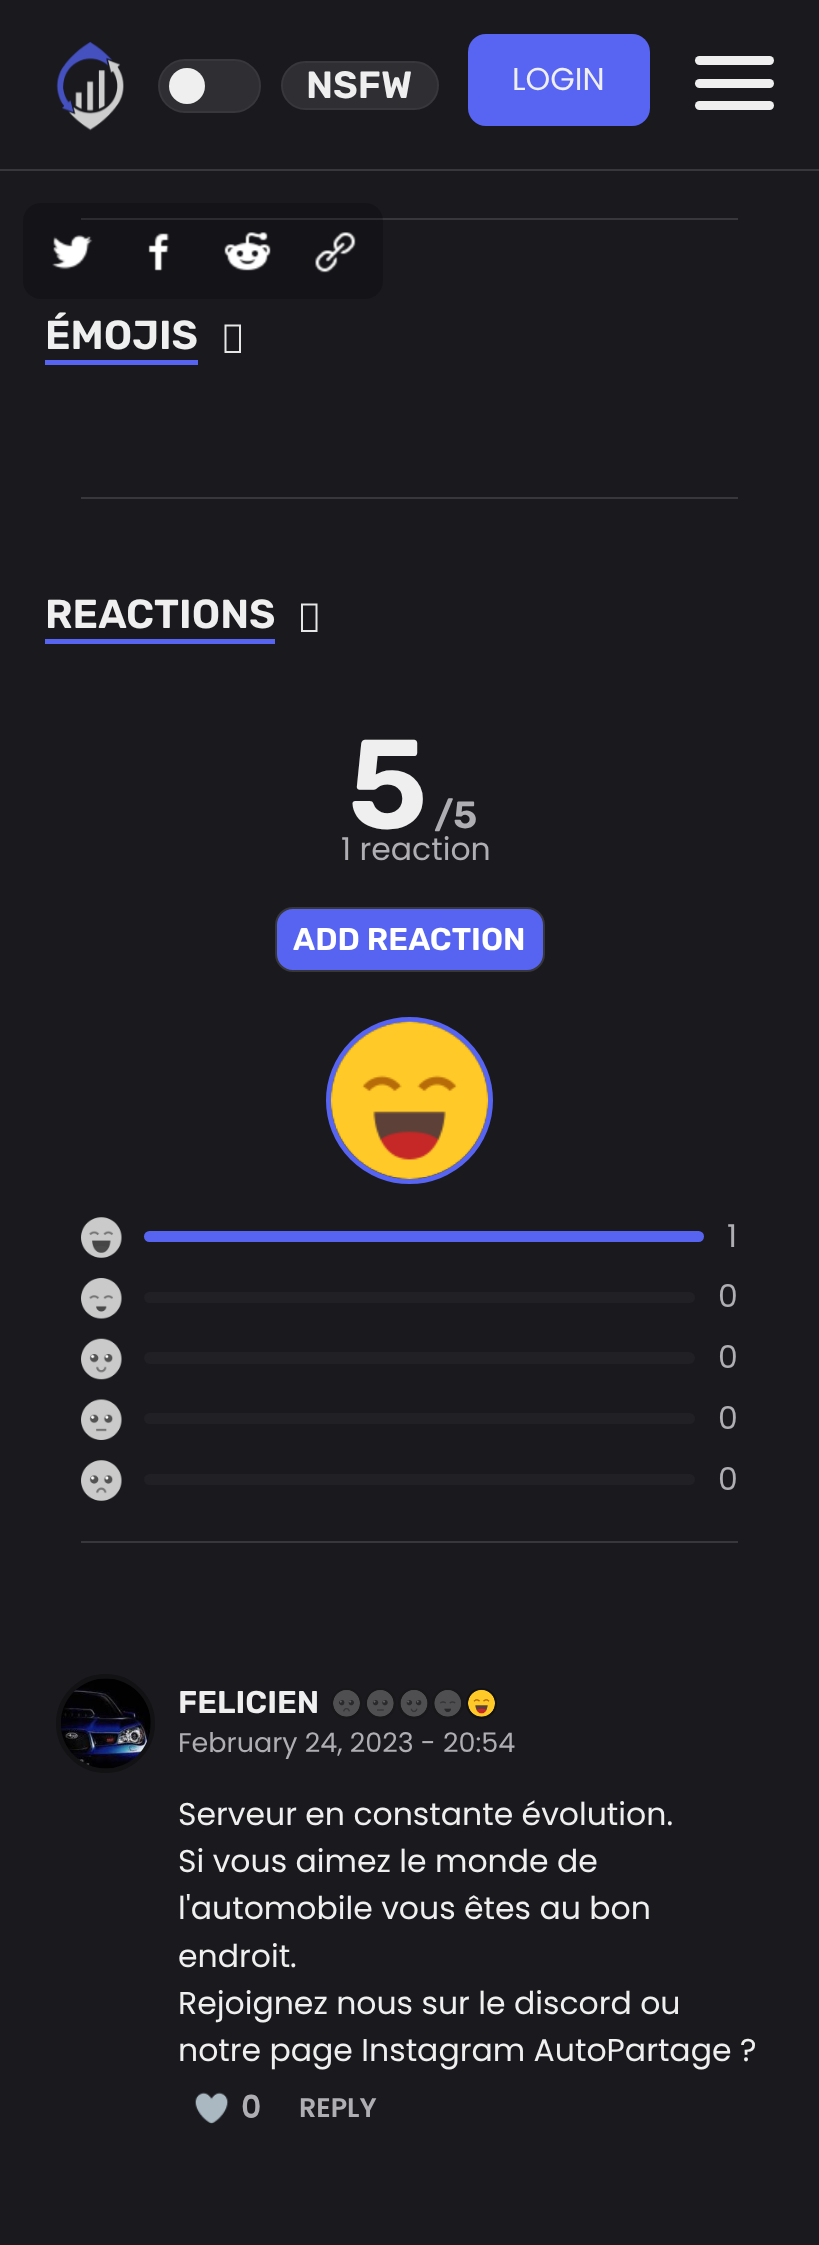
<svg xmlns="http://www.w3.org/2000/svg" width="819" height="2245">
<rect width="100%" height="100%" fill="#1a1a1e"/>
<rect y="169" width="819" height="2" fill="#37373c"/>
<image x="56" y="41" width="68" height="90" href="media/1.png"/>
<rect x="159" y="60" width="101" height="52" rx="26" fill="#2e2e33" stroke="#37373c" stroke-width="2"/>
<circle cx="187" cy="86" r="18" fill="#efeff0"/>
<rect x="282" y="62" width="156" height="47" rx="23.5" fill="#2e2e33" stroke="#37373c" stroke-width="2"/>
<text x="306" y="98" style="font-family:Rubik;font-size:38px;font-weight:600;fill:#efeff0">NSFW</text>
<rect x="468" y="34" width="182" height="92" rx="18" fill="#5865f2"/>
<text x="512" y="90" style="font-family:Poppins;font-size:31.5px;fill:#efeff0">LOGIN</text>
<rect x="695" y="56" width="79" height="9" rx="4.5" fill="#efeff0"/>
<rect x="695" y="79" width="79" height="9" rx="4.5" fill="#efeff0"/>
<rect x="695" y="101" width="79" height="9" rx="4.5" fill="#efeff0"/>
<rect x="81" y="218" width="657" height="2" fill="#37373c"/>
<rect x="23" y="203" width="360" height="96" rx="18" fill="#00000033"/>
<image x="52" y="235" width="41" height="35" href="media/2.png"/>
<image x="148" y="233" width="22" height="38" href="media/3.png"/>
<image x="224" y="232" width="47" height="39" href="media/4.png"/>
<image x="315" y="232" width="41" height="41" href="media/5.png"/>
<rect x="45" y="360" width="153" height="5" fill="#5764f1"/>
<text x="45" y="349" style="font-family:Rubik;font-size:40.5px;font-weight:600;fill:#efeff0">ÉMOJIS</text>
<path d="M224.5 353v-28.5h16.5v28.5zm2-2h12.5v-24.5h-12.5z" fill="#e6e6e6"/>
<rect x="81" y="497" width="657" height="2" fill="#37373c"/>
<rect x="45" y="639" width="230" height="5" fill="#5764f1"/>
<text x="45" y="628" style="font-family:Rubik;font-size:40.5px;font-weight:600;fill:#efeff0">REACTIONS</text>
<path d="M301 632v-28.5h16.5v28.5zm2-2h12.5v-24.5h-12.5z" fill="#e6e6e6"/>
<text x="348" y="828" style="font-family:Rubik;font-size:126px;font-weight:600;fill:#efeff0">5</text>
<text x="434" y="828" style="font-family:Rubik;font-size:38px;font-weight:600;fill:#aeaeb3">/5</text>
<text x="341" y="860" style="font-family:Poppins;font-size:31.5px;fill:#aeaeb3">1 reaction</text>
<rect x="276" y="908" width="268" height="63" rx="17" fill="#5764f1" stroke="#37373c" stroke-width="2"/>
<text x="293" y="950" style="font-family:Rubik;font-size:31.5px;font-weight:600;fill:#fff">ADD REACTION</text>
<circle cx="409.5" cy="1100.5" r="81" fill="none" stroke="#5764f1" stroke-width="5"/>
<image x="330" y="1021" width="159" height="158" href="media/6.png"/>
<image x="81" y="1217" width="41" height="41" href="media/7.png"/>
<rect x="144" y="1231" width="560" height="11" rx="5.5" fill="#5764f1"/>
<text x="727" y="1247" style="font-family:Poppins;font-size:31.5px;fill:#aeaeb3">1</text>
<image x="81" y="1278" width="41" height="41" href="media/8.png"/>
<rect x="144" y="1292" width="551" height="11" rx="5.5" fill="#212125"/>
<text x="718" y="1307" style="font-family:Poppins;font-size:31.5px;fill:#aeaeb3">0</text>
<image x="81" y="1338" width="41" height="42" href="media/9.png"/>
<rect x="144" y="1352" width="551" height="12" rx="6" fill="#212125"/>
<text x="718" y="1368" style="font-family:Poppins;font-size:31.5px;fill:#aeaeb3">0</text>
<image x="81" y="1399" width="41" height="41" href="media/10.png"/>
<rect x="144" y="1413" width="551" height="11" rx="5.5" fill="#212125"/>
<text x="718" y="1429" style="font-family:Poppins;font-size:31.5px;fill:#aeaeb3">0</text>
<image x="81" y="1460" width="41" height="41" href="media/11.png"/>
<rect x="144" y="1474" width="551" height="11" rx="5.5" fill="#212125"/>
<text x="718" y="1490" style="font-family:Poppins;font-size:31.5px;fill:#aeaeb3">0</text>
<rect x="81" y="1541" width="657" height="2" fill="#37373c"/>
<circle cx="105.5" cy="1723.5" r="47" fill="none" stroke="#121215" stroke-width="5"/>
<image x="61" y="1678" width="90" height="91" href="media/12.png"/>
<text x="178" y="1713" style="font-family:Rubik;font-size:31.5px;font-weight:600;fill:#efeff0">FELICIEN</text>
<circle cx="346.5" cy="1703.5" r="14.5" fill="none" stroke="#18181b" stroke-width="2"/>
<image x="333" y="1690" width="27" height="27" href="media/13.png"/>
<circle cx="380.5" cy="1703.5" r="14.5" fill="none" stroke="#18181b" stroke-width="2"/>
<image x="367" y="1690" width="27" height="27" href="media/14.png"/>
<rect x="399" y="1689" width="30" height="29" rx="14.5" fill="none" stroke="#18181b" stroke-width="2"/>
<image x="400" y="1690" width="28" height="27" href="media/15.png"/>
<rect x="433" y="1689" width="30" height="29" rx="14.5" fill="none" stroke="#18181b" stroke-width="2"/>
<image x="434" y="1690" width="27" height="27" href="media/16.png"/>
<circle cx="481.5" cy="1703.5" r="14.5" fill="none" stroke="#121215" stroke-width="2"/>
<image x="468" y="1689" width="27" height="28" href="media/17.png"/>
<text x="178" y="1752" style="font-family:Poppins;font-size:27px;fill:#aeaeb3">February 24, 2023 - 20:54</text>
<text x="178" y="1825" style="font-family:Poppins;font-size:31.5px;fill:#efeff0">Serveur en constante évolution.</text>
<text x="178" y="1872" style="font-family:Poppins;font-size:31.5px;fill:#efeff0">Si vous aimez le monde de</text>
<text x="178" y="1919" style="font-family:Poppins;font-size:31.5px;fill:#efeff0">l'automobile vous êtes au bon</text>
<text x="178" y="1967" style="font-family:Poppins;font-size:31.5px;fill:#efeff0">endroit.</text>
<text x="178" y="2014" style="font-family:Poppins;font-size:31.5px;fill:#efeff0">Rejoignez nous sur le discord ou</text>
<text x="178" y="2061" style="font-family:Poppins;font-size:31.5px;fill:#efeff0">notre page Instagram AutoPartage ?</text>
<image x="195" y="2092" width="34" height="32" href="media/18.png"/>
<text x="241" y="2118" style="font-family:Poppins;font-size:31.5px;font-weight:600;fill:#aeaeb3">0</text>
<text x="299" y="2117" style="font-family:Poppins;font-size:27px;font-weight:600;fill:#aeaeb3">REPLY</text>
</svg>
